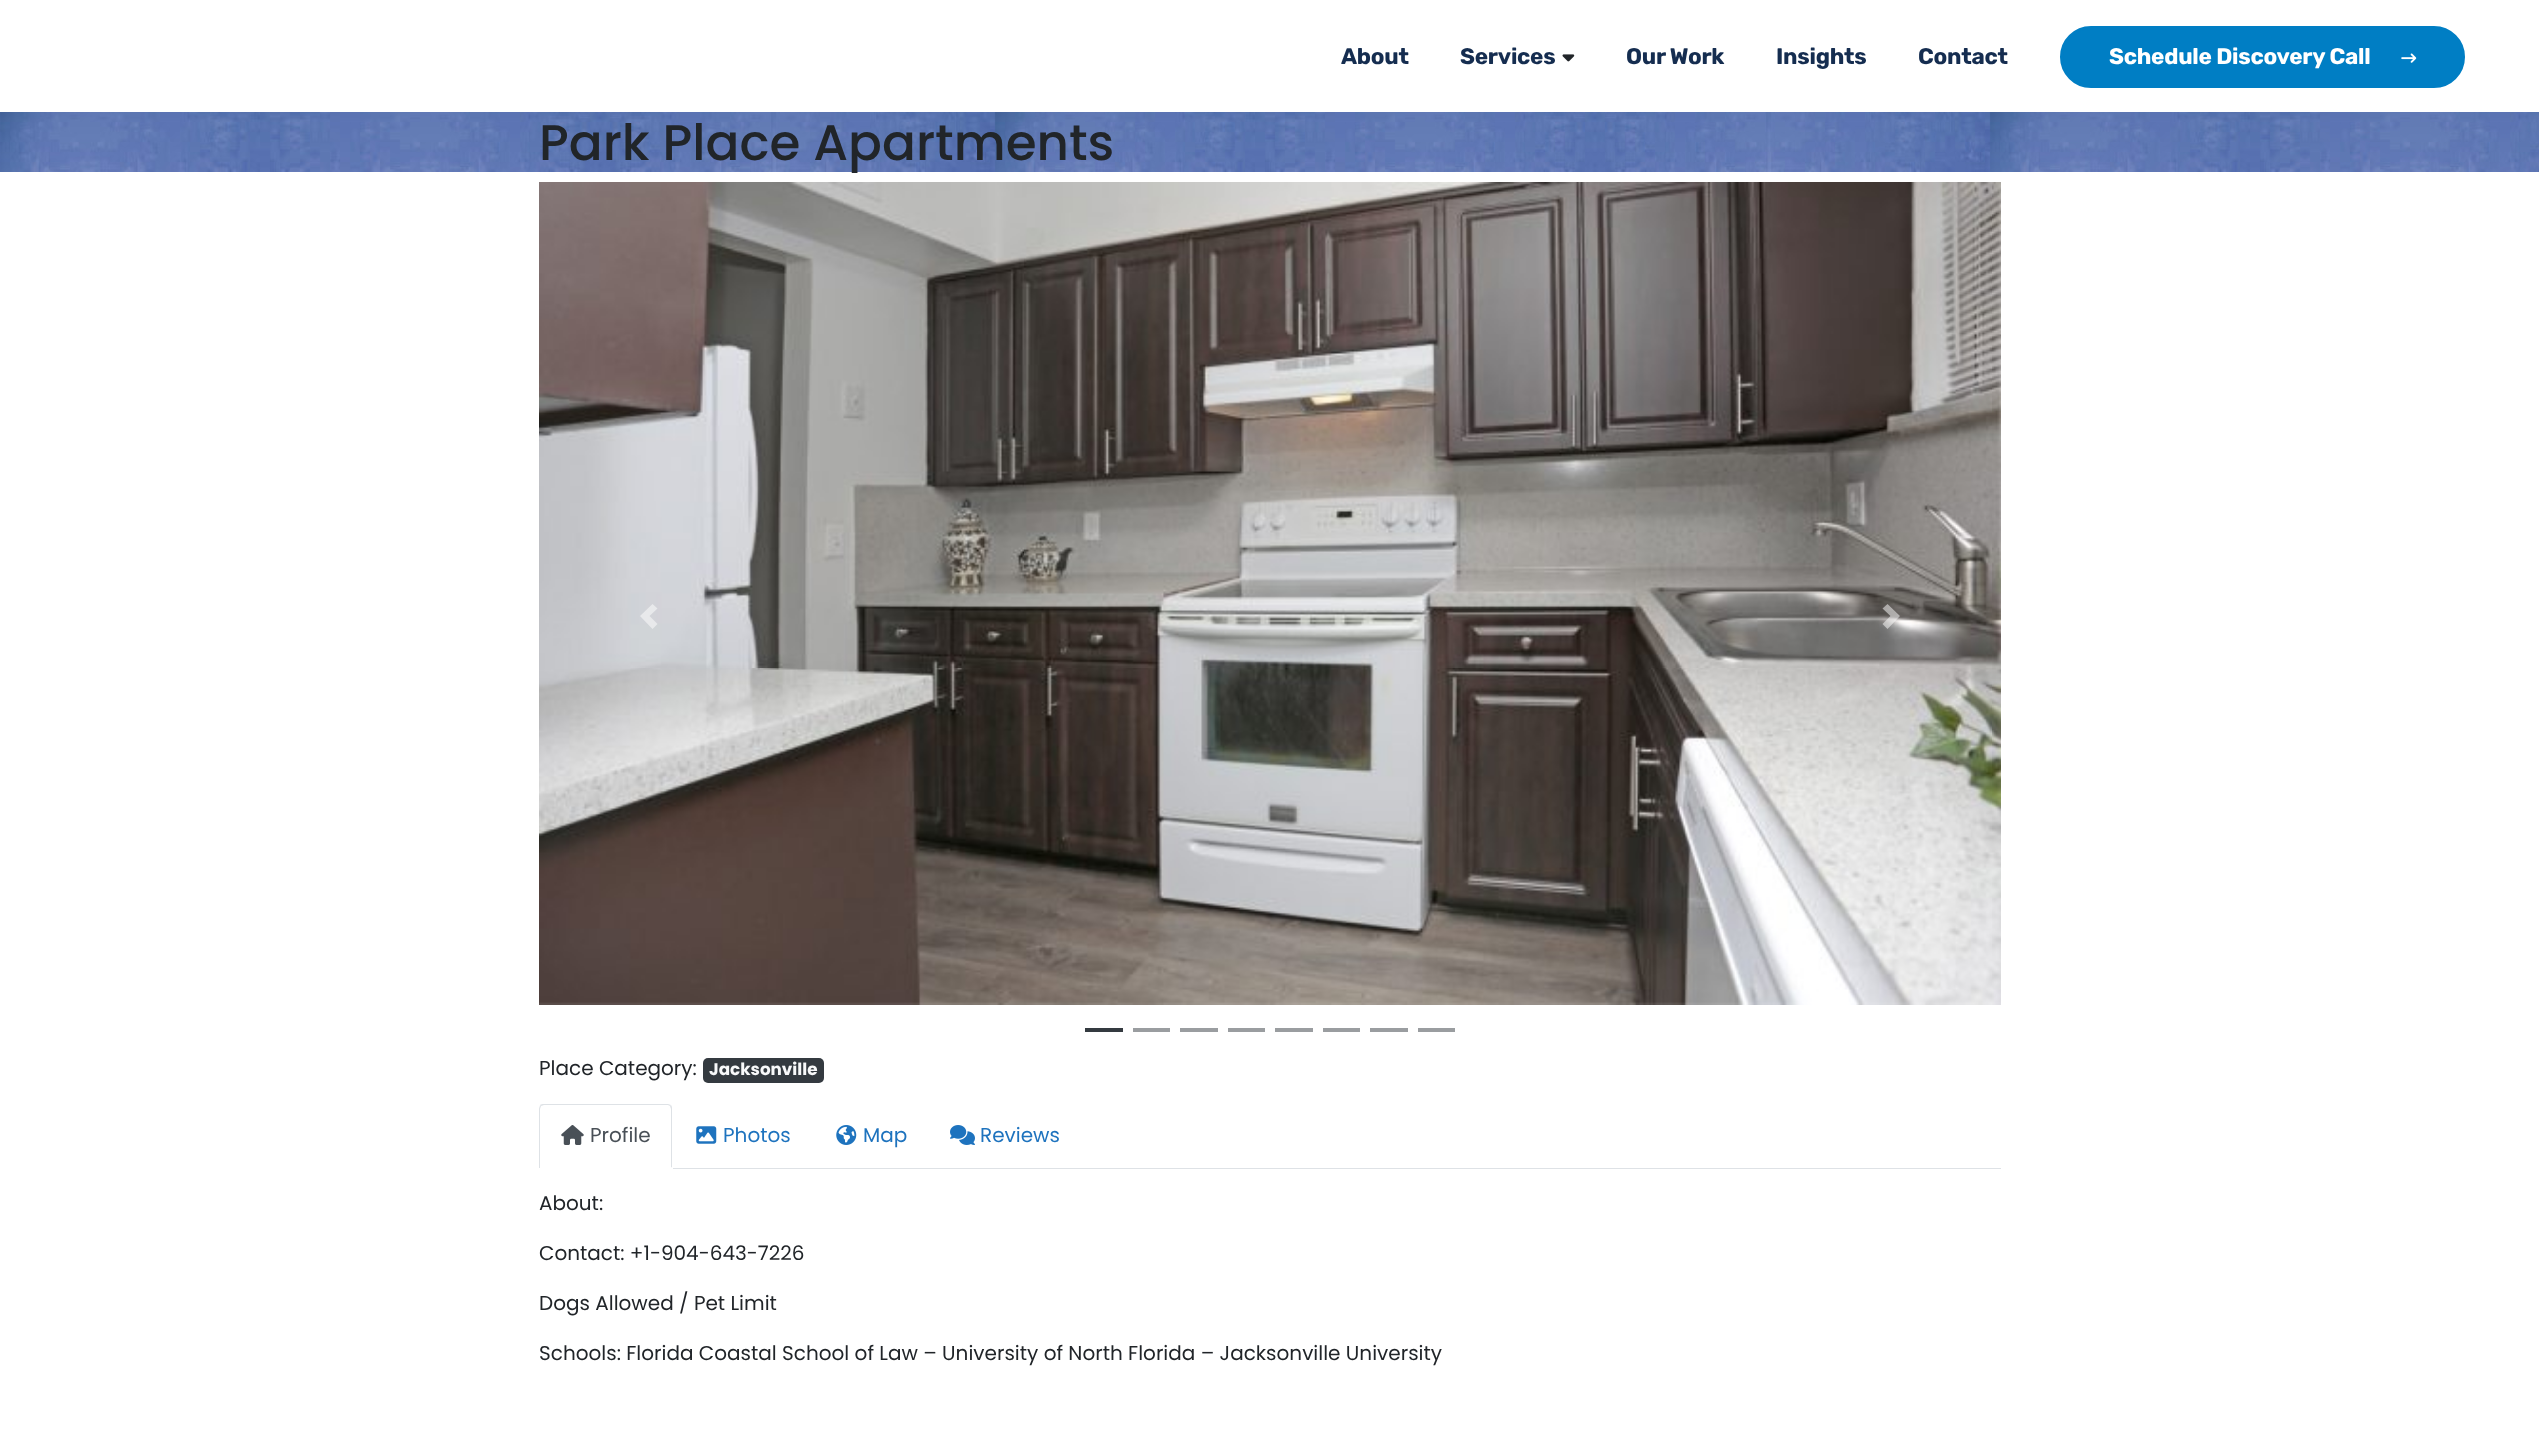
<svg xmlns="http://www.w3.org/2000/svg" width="2539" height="1442">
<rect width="100%" height="100%" fill="#fff"/>
<text x="1341" y="64" style="font-family:Rubik;font-size:22.5px;font-weight:bold;letter-spacing:-0.25px;fill:#152d50">About</text>
<text x="1460" y="64" style="font-family:Rubik;font-size:22.5px;font-weight:bold;letter-spacing:-0.25px;fill:#152d50">Services</text>
<image x="1562" y="54" width="13" height="8" href="media/1.png"/>
<text x="1626" y="64" style="font-family:Rubik;font-size:22.5px;font-weight:bold;letter-spacing:-0.25px;fill:#152d50">Our Work</text>
<text x="1776" y="64" style="font-family:Rubik;font-size:22.5px;font-weight:bold;letter-spacing:-0.25px;fill:#152d50">Insights</text>
<text x="1918" y="64" style="font-family:Rubik;font-size:22.5px;font-weight:bold;letter-spacing:-0.25px;fill:#152d50">Contact</text>
<rect x="2061.5" y="27.5" width="402" height="59" rx="29.5" fill="#007ec4" stroke="#007ec4" stroke-width="3"/>
<text x="2109" y="64" style="font-family:Rubik;font-size:22.5px;font-weight:bold;letter-spacing:-0.25px;fill:#fff">Schedule Discovery Call</text>
<image x="2401" y="53" width="16" height="10" href="media/2.png"/>
<image x="0" y="112" width="2539" height="60" href="media/3.png"/>
<text x="539" y="160" style="font-family:Poppins;font-size:50px;font-weight:500;fill:#212529">Park Place Apartments</text>
<image x="539" y="182" width="1462" height="823" href="media/4.png"/>
<path d="M652.5 604l-12.5 12l12.5 13l5-5l-8-8l8-7.5z" fill="#e8e9eb"/>
<path d="M1887.5 604l-5 4.5l8 7.5l-8 8l5 5l12.5-13z" fill="#ffffff80"/>
<rect x="1085" y="1028" width="38" height="4" fill="#343a40"/>
<rect x="1133" y="1028" width="37" height="4" fill="#9a9da0"/>
<rect x="1180" y="1028" width="38" height="4" fill="#9a9da0"/>
<rect x="1228" y="1028" width="37" height="4" fill="#9a9da0"/>
<rect x="1275" y="1028" width="38" height="4" fill="#9a9da0"/>
<rect x="1323" y="1028" width="37" height="4" fill="#9a9da0"/>
<rect x="1370" y="1028" width="38" height="4" fill="#9a9da0"/>
<rect x="1418" y="1028" width="37" height="4" fill="#9a9da0"/>
<text x="539" y="1075" style="font-family:Poppins;font-size:20px;fill:#212529">Place Category:</text>
<rect x="703" y="1058" width="121" height="25" rx="5" fill="#343a40"/>
<text x="709" y="1075" style="font-family:Poppins;font-size:16.75px;font-weight:bold;fill:#f8f9fa">Jacksonville</text>
<rect x="673" y="1168" width="1328" height="1" fill="#dee2e6"/>
<path d="M544 1104c-2 0-3 0-4 1l1 1l3-1h124l2 1l1-1c-1 0-2-1-3-1z" fill="#dee2e6"/>
<path d="M672 1168v-59c0-1 0-3-1-4l-1 1l1 3v58z" fill="#dee2e6"/>
<path d="M539 1169l1-1h131v-1l1 1v1z" fill="#fff"/>
<path d="M540 1105c0 1-1 3-1 4v59h1v-59l1-3z" fill="#dee2e6"/>
<image x="561" y="1125" width="23" height="20" href="media/5.png"/>
<text x="590" y="1142" style="font-family:Poppins;font-size:20px;fill:#495057">Profile</text>
<image x="696" y="1126" width="21" height="18" href="media/6.png"/>
<text x="723" y="1142" style="font-family:Poppins;font-size:20px;fill:#1e73be">Photos</text>
<image x="836" y="1125" width="21" height="20" href="media/7.png"/>
<text x="863" y="1142" style="font-family:Poppins;font-size:20px;fill:#1e73be">Map</text>
<image x="950" y="1125" width="25" height="20" href="media/8.png"/>
<text x="980" y="1142" style="font-family:Poppins;font-size:20px;fill:#1e73be">Reviews</text>
<text x="539" y="1210" style="font-family:Poppins;font-size:20px;fill:#212529">About:</text>
<text x="539" y="1260" style="font-family:Poppins;font-size:20px;fill:#212529">Contact: +1-904-643-7226</text>
<text x="539" y="1310" style="font-family:Poppins;font-size:20px;fill:#212529">Dogs Allowed / Pet Limit</text>
<text x="539" y="1360" style="font-family:Poppins;font-size:20px;fill:#212529">Schools: Florida Coastal School of Law – University of North Florida – Jacksonville University</text>
</svg>
